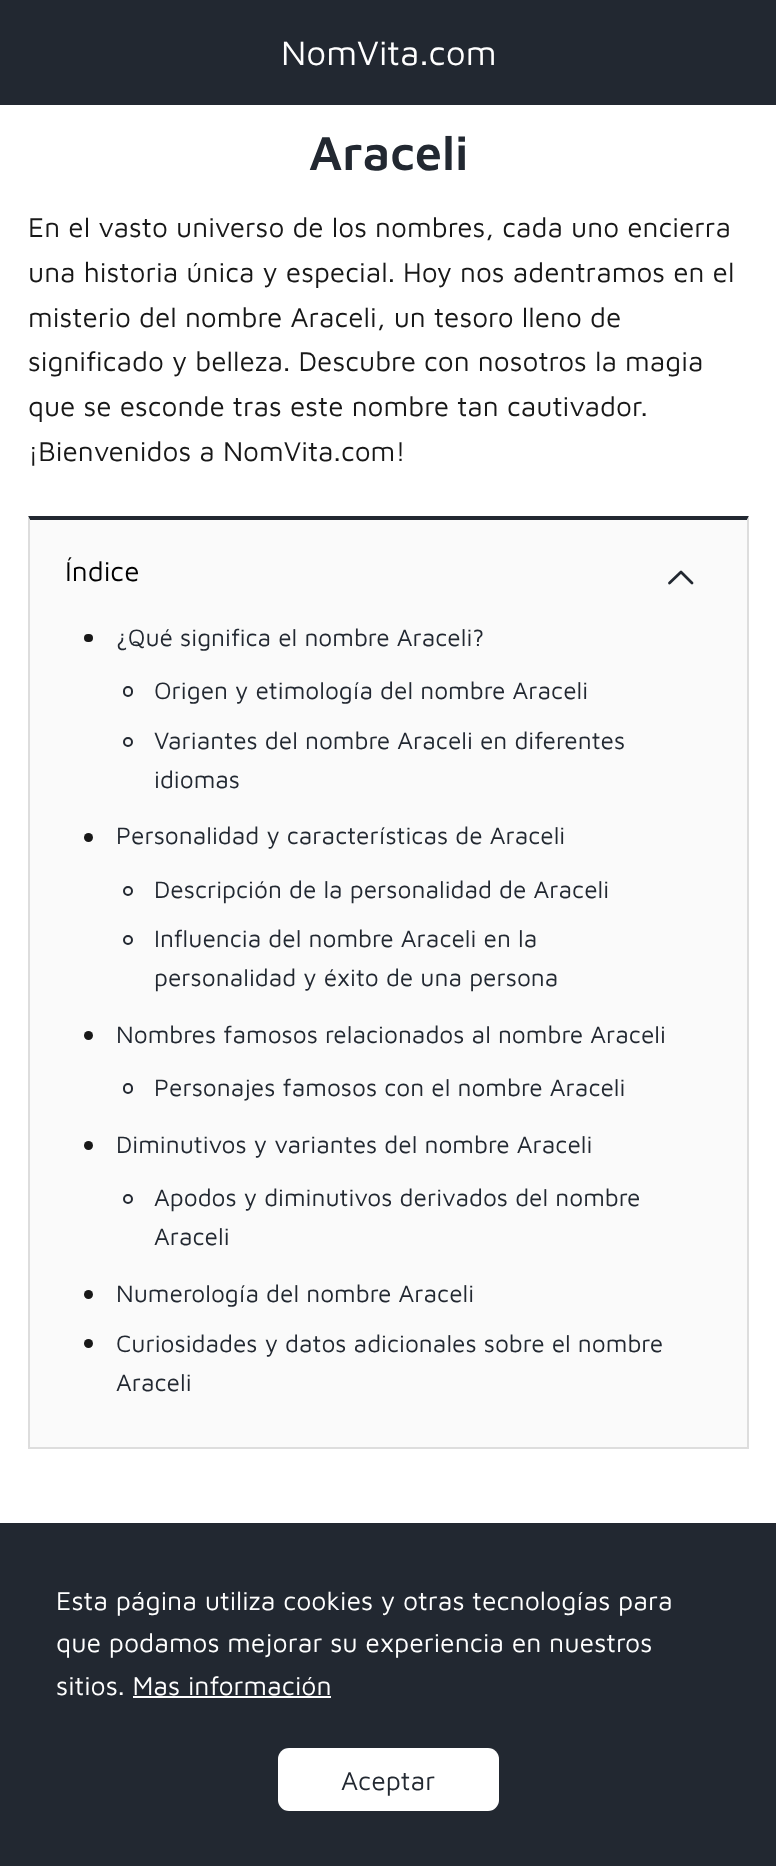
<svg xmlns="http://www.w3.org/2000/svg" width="776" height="1866">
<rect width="100%" height="100%" fill="#fff"/>
<rect width="776" height="105" fill="#222831"/>
<text x="281" y="65" style="font-family:Maven Pro;font-size:35px;fill:#fff">NomVita.com</text>
<text x="309" y="170" style="font-family:Maven Pro;font-size:49px;font-weight:600;fill:#222831">Araceli</text>
<text x="28" y="237" style="font-family:Maven Pro;font-size:28px;fill:#181818">En el vasto universo de los nombres, cada uno encierra</text>
<text x="28" y="282" style="font-family:Maven Pro;font-size:28px;fill:#181818">una historia única y especial. Hoy nos adentramos en el</text>
<text x="28" y="327" style="font-family:Maven Pro;font-size:28px;fill:#181818">misterio del nombre Araceli, un tesoro lleno de</text>
<text x="28" y="371" style="font-family:Maven Pro;font-size:28px;fill:#181818">significado y belleza. Descubre con nosotros la magia</text>
<text x="28" y="416" style="font-family:Maven Pro;font-size:28px;fill:#181818">que se esconde tras este nombre tan cautivador.</text>
<text x="28" y="461" style="font-family:Maven Pro;font-size:28px;fill:#181818">¡Bienvenidos a NomVita.com!</text>
<rect x="30" y="520" width="717" height="927" fill="#fafafa"/>
<path d="M28 516h721l-2 4h-717z" fill="#222831"/>
<path d="M749 516v933l-2-2v-927z" fill="#ddd"/>
<rect x="28" y="1447" width="721" height="2" fill="#ddd"/>
<path d="M28 1449v-933l2 4v927z" fill="#ddd"/>
<text x="65" y="581" style="font-family:Maven Pro;font-size:28px;fill:#000">Índice</text>
<path d="M669.5 583l11.5-11l11 11" fill="none" stroke="#222831" stroke-width="2.8" stroke-linecap="round" stroke-linejoin="round"/>
<rect x="84" y="634" width="9" height="8" rx="4" fill="#181818"/>
<text x="116" y="646" style="font-family:Maven Pro;font-size:24.5px;fill:#222831">¿Qué significa el nombre Araceli?</text>
<rect x="124" y="687" width="8" height="9" rx="4" fill="none" stroke="#222831" stroke-width="2"/>
<text x="154" y="699" style="font-family:Maven Pro;font-size:24.5px;fill:#222831">Origen y etimología del nombre Araceli</text>
<circle cx="128" cy="742" r="4" fill="none" stroke="#222831" stroke-width="2"/>
<text x="154" y="749" style="font-family:Maven Pro;font-size:24.5px;fill:#222831">Variantes del nombre Araceli en diferentes</text>
<text x="154" y="788" style="font-family:Maven Pro;font-size:24.5px;fill:#222831">idiomas</text>
<circle cx="88.5" cy="837.5" r="4.5" fill="#181818"/>
<text x="116" y="844" style="font-family:Maven Pro;font-size:24.5px;fill:#222831">Personalidad y características de Araceli</text>
<circle cx="128" cy="891" r="4" fill="none" stroke="#222831" stroke-width="2"/>
<text x="154" y="898" style="font-family:Maven Pro;font-size:24.5px;fill:#222831">Descripción de la personalidad de Araceli</text>
<circle cx="128" cy="940" r="4" fill="none" stroke="#222831" stroke-width="2"/>
<text x="154" y="947" style="font-family:Maven Pro;font-size:24.5px;fill:#222831">Influencia del nombre Araceli en la</text>
<text x="154" y="986" style="font-family:Maven Pro;font-size:24.5px;fill:#222831">personalidad y éxito de una persona</text>
<circle cx="88.5" cy="1035.5" r="4.5" fill="#181818"/>
<text x="116" y="1043" style="font-family:Maven Pro;font-size:24.5px;fill:#222831">Nombres famosos relacionados al nombre Araceli</text>
<rect x="124" y="1084" width="8" height="9" rx="4" fill="none" stroke="#222831" stroke-width="2"/>
<text x="154" y="1096" style="font-family:Maven Pro;font-size:24.5px;fill:#222831">Personajes famosos con el nombre Araceli</text>
<circle cx="88.5" cy="1145.5" r="4.5" fill="#181818"/>
<text x="116" y="1153" style="font-family:Maven Pro;font-size:24.5px;fill:#222831">Diminutivos y variantes del nombre Araceli</text>
<circle cx="128" cy="1199" r="4" fill="none" stroke="#222831" stroke-width="2"/>
<text x="154" y="1206" style="font-family:Maven Pro;font-size:24.5px;fill:#222831">Apodos y diminutivos derivados del nombre</text>
<text x="154" y="1245" style="font-family:Maven Pro;font-size:24.5px;fill:#222831">Araceli</text>
<circle cx="88.5" cy="1294.5" r="4.5" fill="#181818"/>
<text x="116" y="1302" style="font-family:Maven Pro;font-size:24.5px;fill:#222831">Numerología del nombre Araceli</text>
<circle cx="88.5" cy="1343.5" r="4.5" fill="#181818"/>
<text x="116" y="1352" style="font-family:Maven Pro;font-size:24.5px;fill:#222831">Curiosidades y datos adicionales sobre el nombre</text>
<text x="116" y="1391" style="font-family:Maven Pro;font-size:24.5px;fill:#222831">Araceli</text>
<rect y="1523" width="776" height="343" fill="#222831"/>
<text x="56" y="1610" style="font-family:Maven Pro;font-size:26.6px;fill:#fff">Esta página utiliza cookies y otras tecnologías para</text>
<text x="56" y="1652" style="font-family:Maven Pro;font-size:26.6px;fill:#fff">que podamos mejorar su experiencia en nuestros</text>
<text x="56" y="1695" style="font-family:Maven Pro;font-size:26.6px;fill:#fff">sitios. Mas información</text>
<rect x="133" y="1696" width="198" height="2" fill="#fff"/>
<rect x="278" y="1748" width="221" height="63" rx="11" fill="#fff"/>
<text x="341" y="1790" style="font-family:Maven Pro;font-size:26.6px;fill:#222831">Aceptar</text>
</svg>
